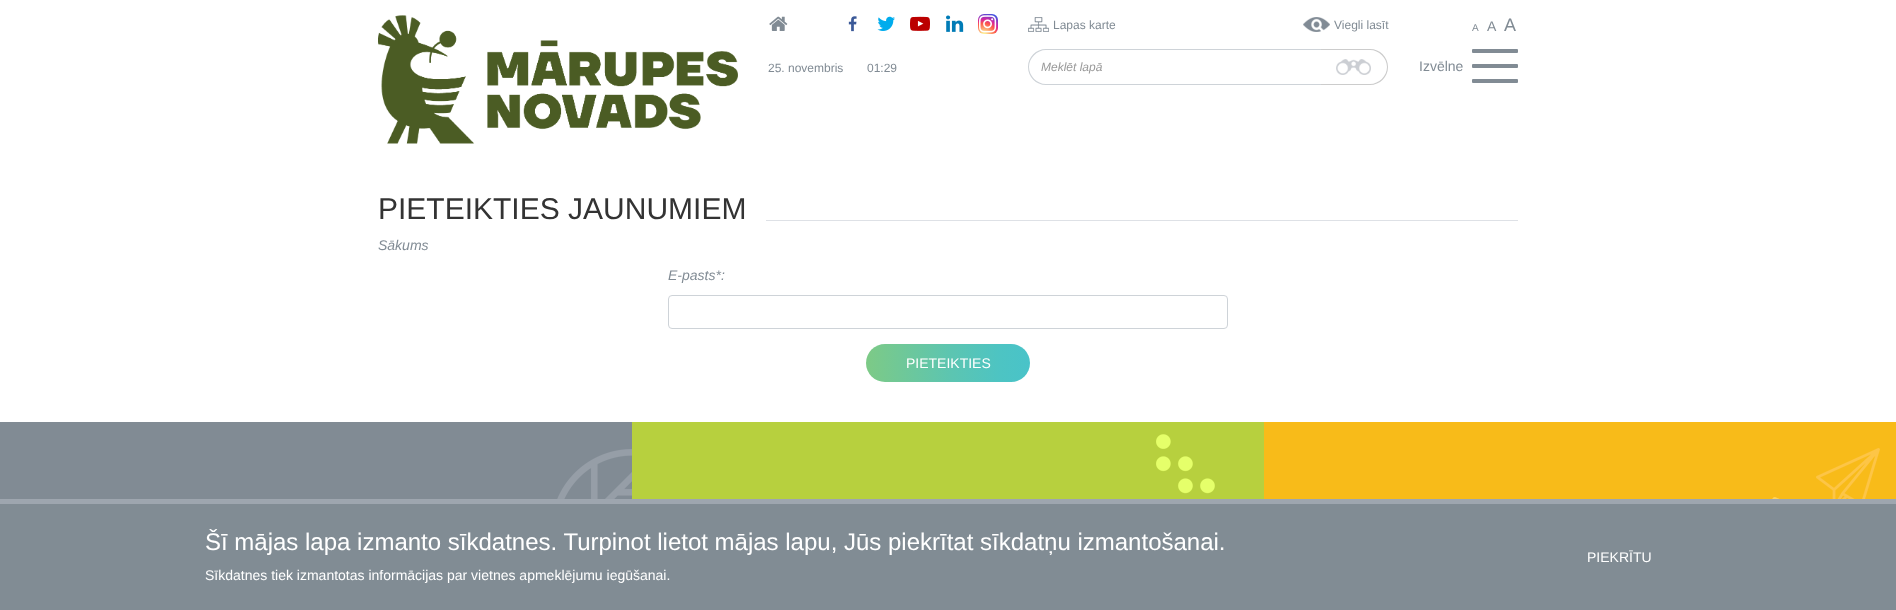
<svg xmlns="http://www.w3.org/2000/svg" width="1896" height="610">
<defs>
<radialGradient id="g1" gradientUnits="userSpaceOnUse" cx="984" cy="35" r="26"><stop offset="0" stop-color="#fdf497"/><stop offset="0.05" stop-color="#fdf497"/><stop offset="0.45" stop-color="#fd5949"/><stop offset="0.6" stop-color="#d6249f"/><stop offset="0.9" stop-color="#285aeb"/></radialGradient>
<linearGradient id="g2" gradientUnits="userSpaceOnUse" x1="866" y1="363" x2="1030" y2="363"><stop offset="0" stop-color="#7dca86"/><stop offset="0.52" stop-color="#5cc5b1"/><stop offset="0.82" stop-color="#4dc4c3"/><stop offset="1" stop-color="#49c3c9"/></linearGradient>
</defs>
<rect width="100%" height="100%" fill="#fff"/>
<image x="378" y="15" width="360" height="129" href="media/1.png"/>
<image x="769" y="16" width="19" height="15" href="media/2.png"/>
<image x="848" y="16" width="9" height="16" href="media/3.png"/>
<image x="877" y="16" width="18" height="15" href="media/4.png"/>
<image x="910" y="16" width="20" height="15" href="media/5.png"/>
<image x="946" y="15" width="18" height="17" href="media/6.png"/>
<rect x="978" y="14" width="20" height="20" rx="6" fill="url(#g1)"/>
<image x="979" y="15" width="18" height="18" href="media/7.png"/>
<image x="1028" y="17" width="21" height="15" href="media/8.png"/>
<text x="1053" y="29" style="font-family:Liberation Sans;font-size:12px;fill:#818b94">Lapas karte</text>
<image x="1303" y="17" width="27" height="15" href="media/9.png"/>
<text x="1334" y="29" style="font-family:Liberation Sans;font-size:12px;fill:#818b94">Viegli lasīt</text>
<text x="1472" y="31" style="font-family:Liberation Sans;font-size:10px;fill:#818b94">A</text>
<text x="1487" y="31" style="font-family:Liberation Sans;font-size:14px;fill:#818b94">A</text>
<text x="1504" y="31" style="font-family:Liberation Sans;font-size:18px;fill:#818b94">A</text>
<text x="768" y="72" style="font-family:Liberation Sans;font-size:12px;fill:#818b94">25. novembris</text>
<text x="867" y="72" style="font-family:Liberation Sans;font-size:12px;fill:#818b94">01:29</text>
<path d="M1046 49h275v36h-275c-10 0-18-8-18-18c0-10 8-18 18-18zm0 1h275v34h-275c-9 0-17-8-17-17c0-9 8-17 17-17z" fill="#ced3d8" fill-rule="evenodd"/>
<text x="1041" y="71" style="font-family:Liberation Sans;font-size:12px;font-style:italic;fill:#999">Meklēt lapā</text>
<path d="M1321 49h49c10 0 18 8 18 18c0 10-8 18-18 18h-49zm0 1h49c9 0 17 8 17 17c0 9-8 17-17 17h-49z" fill="#ccc" fill-rule="evenodd"/>
<image x="1336" y="59" width="35" height="16" href="media/10.png"/>
<text x="1419" y="71" style="font-family:Liberation Sans;font-size:14px;fill:#818b94">Izvēlne</text>
<rect x="1472" y="49" width="46" height="4" rx="1" fill="#818b94"/>
<rect x="1472" y="64" width="46" height="4" rx="1" fill="#818b94"/>
<rect x="1472" y="79" width="46" height="4" rx="1" fill="#818b94"/>
<text x="378" y="219" style="font-family:Liberation Sans;font-size:30px;fill:#333">PIETEIKTIES JAUNUMIEM</text>
<rect x="766" y="220" width="752" height="1" fill="#dee1e6"/>
<text x="378" y="250" style="font-family:Liberation Sans;font-size:14px;font-style:italic;fill:#818b94">Sākums</text>
<text x="668" y="280" style="font-family:Liberation Sans;font-size:14px;font-style:italic;fill:#818b94">E-pasts*:</text>
<rect x="668.5" y="295.5" width="559" height="33" rx="3.5" fill="none" stroke="#ced3d8"/>
<rect x="866" y="344" width="164" height="38" rx="19" fill="url(#g2)"/>
<text x="906" y="368" style="font-family:Liberation Sans;font-size:14px;fill:#fff">PIETEIKTIES</text>
<rect y="422" width="632" height="77" fill="#818b94"/>
<image x="557" y="449" width="75" height="50" href="media/11.png"/>
<rect x="632" y="422" width="632" height="77" fill="#b7d03e"/>
<image x="1156" y="434" width="59" height="60" href="media/12.png"/>
<rect x="1264" y="422" width="632" height="77" fill="#f8bb19"/>
<image x="1772" y="448" width="108" height="51" href="media/13.png"/>
<rect y="504" width="1896" height="106" fill="#818c94"/>
<rect y="499" width="1896" height="5" fill="#9ea6af"/>
<text x="205" y="550" style="font-family:Liberation Sans;font-size:24px;fill:#fff">Šī mājas lapa izmanto sīkdatnes. Turpinot lietot mājas lapu, Jūs piekrītat sīkdatņu izmantošanai.</text>
<text x="205" y="580" style="font-family:Liberation Sans;font-size:14px;fill:#fff">Sīkdatnes tiek izmantotas informācijas par vietnes apmeklējumu iegūšanai.</text>
<text x="1587" y="562" style="font-family:Liberation Sans;font-size:14px;fill:#fff">PIEKRĪTU</text>
</svg>
